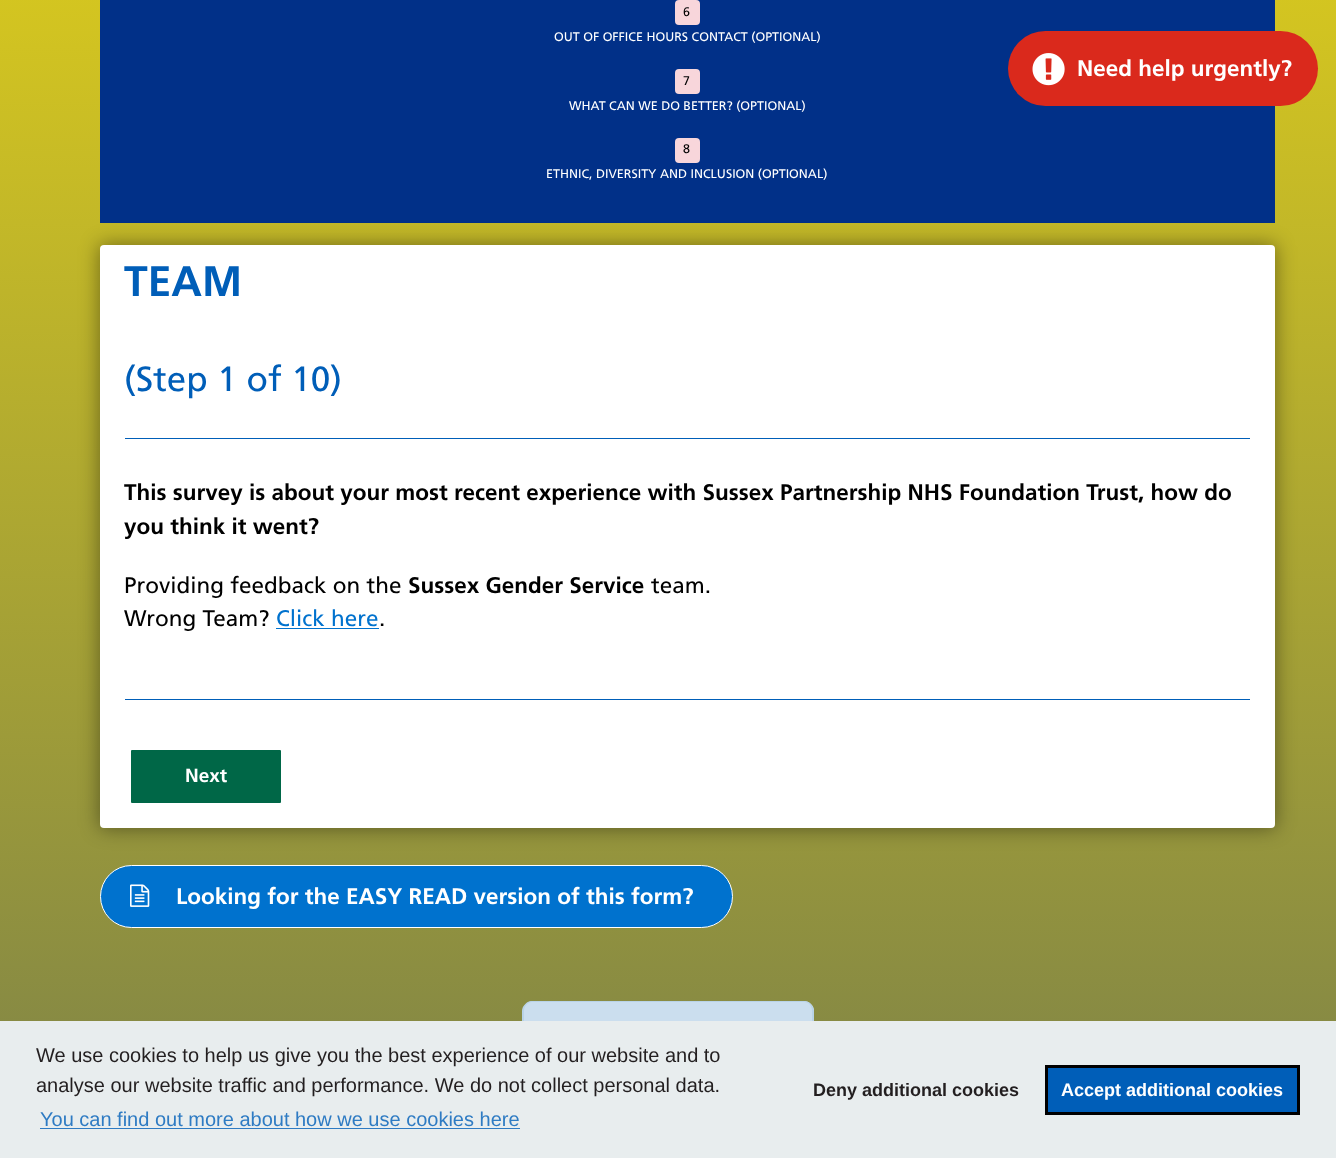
<svg xmlns="http://www.w3.org/2000/svg" width="1336" height="1158">
<defs>
<linearGradient id="g1" gradientUnits="userSpaceOnUse" x1="668" y1="-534" x2="668" y2="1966"><stop offset="0" stop-color="#fbe30e"/><stop offset="1" stop-color="#425563"/></linearGradient>
</defs>
<rect width="100%" height="100%" fill="#fff"/>
<rect width="1336" height="1021" fill="url(#g1)"/>
<rect x="100" width="1175" height="223" fill="#013088"/>
<rect x="675" width="25" height="25" rx="4" fill="#f8d6db"/>
<text x="683" y="16" style="font-family:Frutiger;font-size:12.5px;fill:#000">6</text>
<text x="554" y="41" style="font-family:Frutiger;font-size:12.5px;fill:#fff">OUT OF OFFICE HOURS CONTACT (OPTIONAL)</text>
<rect x="675" y="69" width="25" height="25" rx="4" fill="#f8d6db"/>
<text x="683" y="85" style="font-family:Frutiger;font-size:12.5px;fill:#000">7</text>
<text x="569" y="110" style="font-family:Frutiger;font-size:12.5px;fill:#fff">WHAT CAN WE DO BETTER? (OPTIONAL)</text>
<rect x="675" y="138" width="25" height="25" rx="4" fill="#f8d6db"/>
<text x="683" y="153" style="font-family:Frutiger;font-size:12.5px;fill:#000">8</text>
<text x="546" y="178" style="font-family:Frutiger;font-size:12.5px;fill:#fff">ETHNIC, DIVERSITY AND INCLUSION (OPTIONAL)</text>
<rect x="99" y="244" width="1177" height="585" rx="5" fill="#00000066" filter="blur(9.5px)"/>
<rect x="100" y="245" width="1175" height="583" rx="4" fill="#fff"/>
<text x="124" y="296" style="font-family:Frutiger;font-size:42.5px;font-weight:bold;fill:#005eb8">TEAM</text>
<text x="124" y="391" style="font-family:Frutiger;font-size:35px;fill:#005eb8">(Step 1 of 10)</text>
<rect x="125" y="438" width="1125" height="1" fill="#005eb8"/>
<text x="124" y="500" style="font-family:Frutiger;font-size:22.5px;font-weight:bold;fill:#000">This survey is about your most recent experience with Sussex Partnership NHS Foundation Trust, how do</text>
<text x="124" y="534" style="font-family:Frutiger;font-size:22.5px;font-weight:bold;fill:#000">you think it went?</text>
<text x="124" y="593" style="font-family:Frutiger;font-size:22.5px;fill:#000">Providing feedback on the</text>
<text x="408" y="593" style="font-family:Frutiger;font-size:22.5px;font-weight:bold;fill:#000">Sussex Gender Service</text>
<text x="651" y="593" style="font-family:Frutiger;font-size:22.5px;fill:#000">team.</text>
<text x="124" y="626" style="font-family:Frutiger;font-size:22.5px;fill:#000">Wrong Team?</text>
<text x="276" y="626" style="font-family:Frutiger;font-size:22.5px;fill:#0072ce">Click here</text>
<rect x="276" y="628" width="103" height="1" fill="#0072ce"/>
<text x="379" y="626" style="font-family:Frutiger;font-size:22.5px;fill:#000">.</text>
<rect x="125" y="699" width="1125" height="1" fill="#005eb8"/>
<rect x="131" y="750" width="150" height="53" rx="1" fill="#006747"/>
<text x="185" y="782" style="font-family:Frutiger;font-size:19px;font-weight:bold;fill:#fff">Next</text>
<rect x="100.5" y="865.5" width="632" height="62" rx="31" fill="#0072ce" stroke="#fff"/>
<image x="130" y="884" width="20" height="23" href="media/1.png"/>
<text x="176" y="904" style="font-family:Frutiger;font-size:22.5px;font-weight:bold;fill:#fff">Looking for the EASY READ version of this form?</text>
<rect x="1008" y="31" width="310" height="75" rx="37.5" fill="#da291c"/>
<image x="1032" y="53" width="33" height="33" href="media/2.png"/>
<text x="1077" y="76" style="font-family:Frutiger;font-size:22.5px;font-weight:bold;fill:#fff">Need help urgently?</text>
<path d="M533 1001h271c5.5 0 10 4.5 10 10v37h-291v-37c0-5.5 4.5-10 10-10z" fill="#cbdeee"/>
<path d="M532 1001h272c5 0 10 5 10 10v37h-292v-37c0-5 5-10 10-10zm0 1h272c5 0 8 4 8 9v37h-288v-37c0-5 4-9 8-9z" fill="#b9d3e7" fill-rule="evenodd"/>
<rect y="1021" width="1336" height="137" fill="#e8edee"/>
<text x="36" y="1062" style="font-family:Liberation Sans;font-size:20px;fill:#231f20">We use cookies to help us give you the best experience of our website and to</text>
<text x="36" y="1092" style="font-family:Liberation Sans;font-size:20px;fill:#231f20">analyse our website traffic and performance. We do not collect personal data.</text>
<text x="40" y="1126" style="font-family:Liberation Sans;font-size:20px;fill:#2e7bc3">You can find out more about how we use cookies here</text>
<rect x="40" y="1128" width="480" height="1" fill="#2e7bc3"/>
<text x="813" y="1096" style="font-family:Liberation Sans;font-size:18px;font-weight:bold;fill:#231f20">Deny additional cookies</text>
<rect x="1046.5" y="1066.5" width="252" height="47" fill="#005eb8" stroke="#000" stroke-width="3"/>
<text x="1061" y="1096" style="font-family:Liberation Sans;font-size:18px;font-weight:bold;fill:#fff">Accept additional cookies</text>
</svg>
